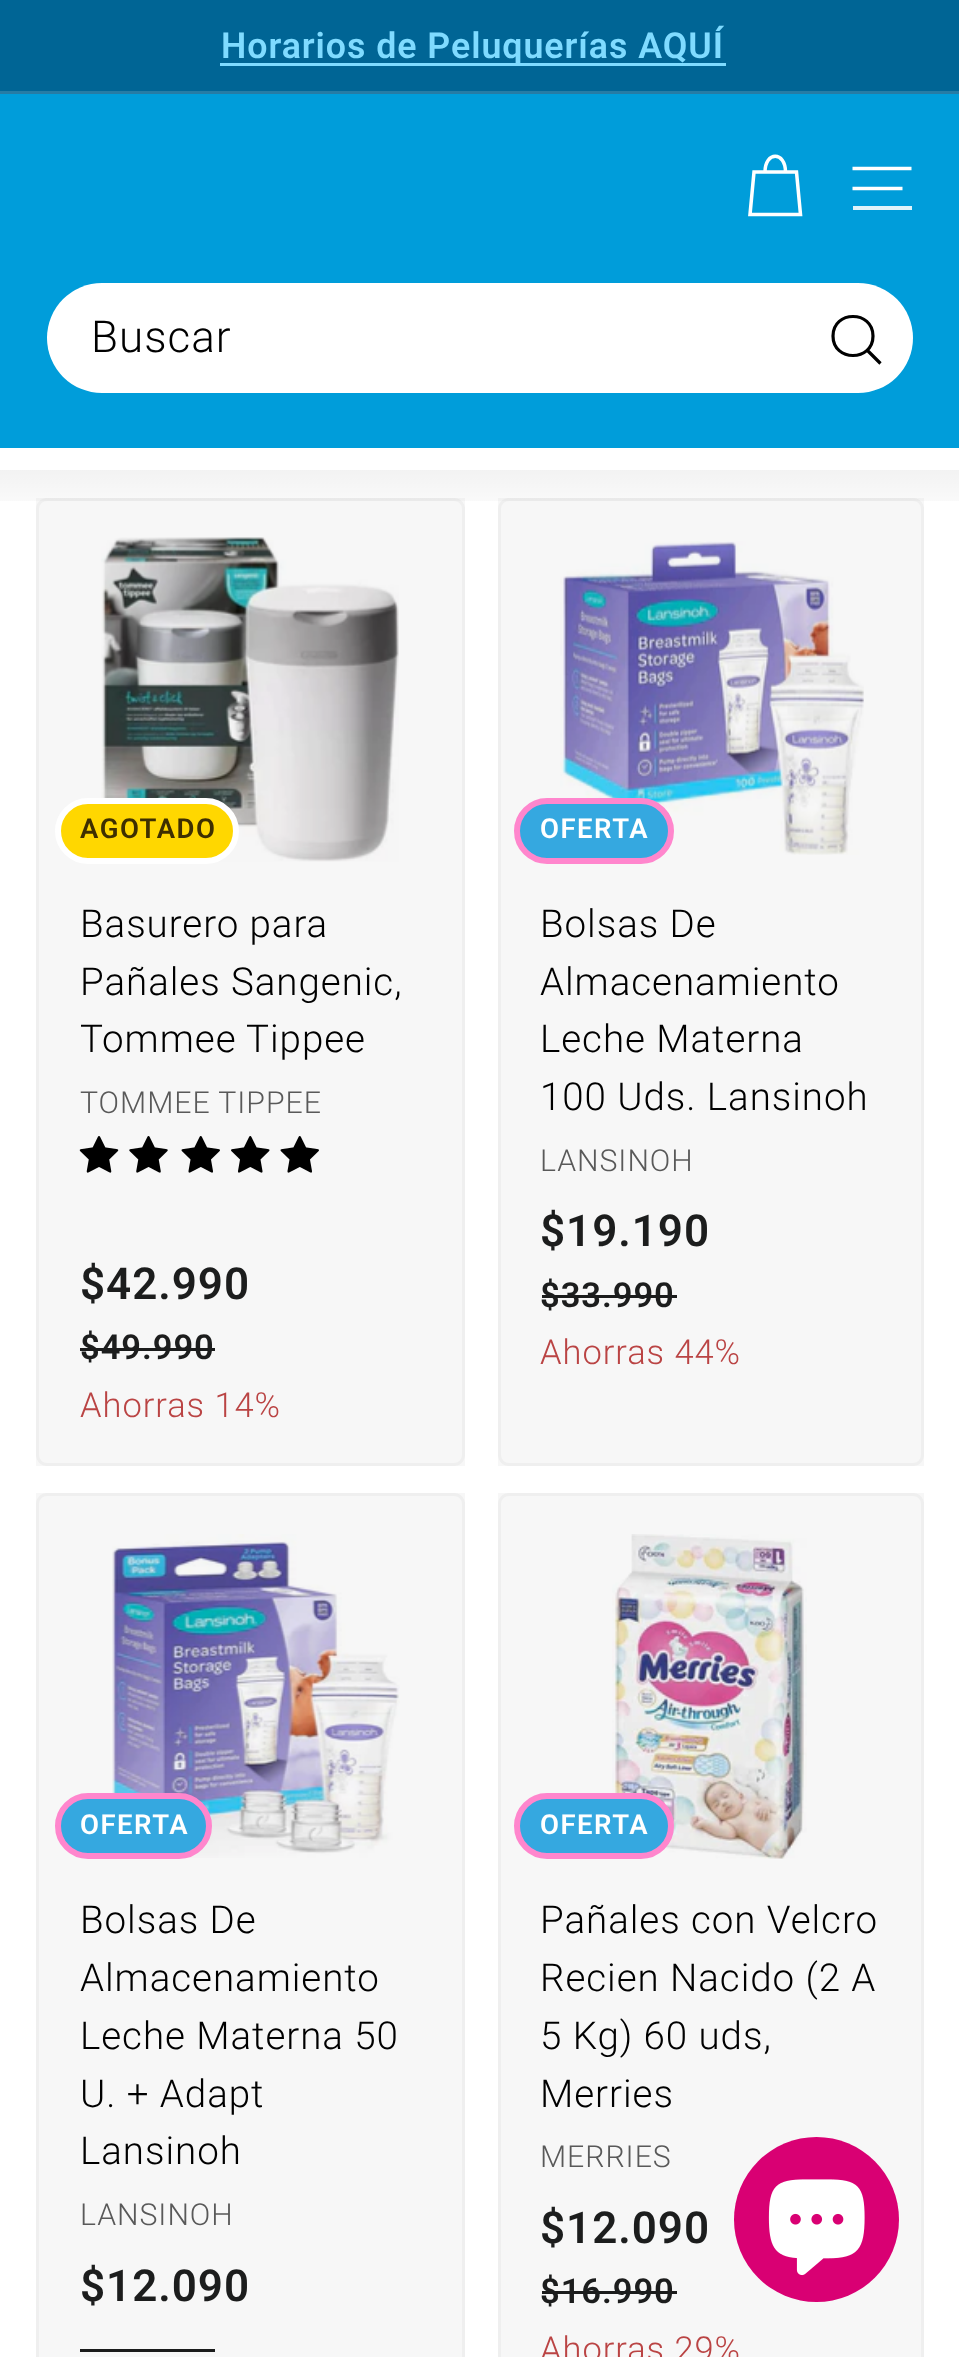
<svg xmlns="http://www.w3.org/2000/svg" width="959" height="2357">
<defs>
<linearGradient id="g1" gradientUnits="userSpaceOnUse" x1="480" y1="470" x2="480" y2="525"><stop offset="0" stop-color="#000" stop-opacity="0.05"/><stop offset="1" stop-color="#000" stop-opacity="0"/></linearGradient>
</defs>
<rect width="100%" height="100%" fill="#fff"/>
<rect width="959" height="91" fill="#006595"/>
<rect x="220" y="63" width="506" height="3" fill="#7fdbff"/>
<text x="221" y="58" style="font-family:Roboto;font-size:35.75px;font-weight:600;letter-spacing:0.95px;fill:#7fdbff">Horarios de Peluquerías AQUÍ</text>
<rect y="91" width="959" height="3" fill="#267ca5"/>
<rect y="94" width="959" height="354" fill="#009dda"/>
<path d="M765 172c0-21 20.5-21 20.5 0m-31.5 0h42.5l4 42.5h-50.5z" fill="none" stroke="#fff" stroke-width="3.5"/>
<path d="M852.5 168.5h59m-59 20h50" fill="none" stroke="#fff" stroke-width="3.5"/>
<rect x="853" y="206" width="59" height="4" fill="#dff3fa"/>
<rect x="47" y="283" width="866" height="110" rx="55" fill="#fff"/>
<text x="91" y="352" style="font-family:Roboto;font-size:44px;font-weight:300;letter-spacing:1px;fill:#000">Buscar</text>
<path d="M873 336c0 26-40 26-40 0c0-26 40-26 40 0zm7.5 27.5l-13-13" fill="none" stroke="#000" stroke-width="3.2"/>
<image x="101" y="537" width="298" height="325" href="media/1.png"/>
<image x="79" y="1136" width="40" height="37" href="media/2.png"/>
<image x="129" y="1136" width="39" height="37" href="media/3.png"/>
<image x="181" y="1136" width="39" height="37" href="media/4.png"/>
<image x="231" y="1136" width="39" height="37" href="media/5.png"/>
<image x="280" y="1136" width="39" height="37" href="media/4.png"/>
<rect x="80" y="1348" width="135" height="3" fill="#1c1d1d"/>
<rect x="36" y="498" width="429" height="968" fill="#00000008"/>
<rect x="37.5" y="499.5" width="426" height="965" rx="9.5" fill="none" stroke="#efefef" stroke-width="3"/>
<image x="560" y="541" width="304" height="314" href="media/6.png"/>
<rect x="542" y="1295" width="135" height="3" fill="#1c1d1d"/>
<rect x="498" y="498" width="426" height="968" fill="#00000008"/>
<rect x="499.5" y="499.5" width="423" height="965" rx="9.5" fill="none" stroke="#efefef" stroke-width="3"/>
<rect y="470" width="959" height="31" fill="url(#g1)"/>
<rect x="58" y="801" width="178" height="60" rx="30" fill="#ffd700" stroke="#fff" stroke-width="6"/>
<text x="80" y="838" style="font-family:Roboto;font-size:27.5px;font-weight:600;letter-spacing:1.5px;fill:#3e2f00">AGOTADO</text>
<text x="80" y="937" style="font-family:Roboto;font-size:38.5px;font-weight:300;letter-spacing:0.95px;fill:#000">Basurero para</text>
<text x="80" y="995" style="font-family:Roboto;font-size:38.5px;font-weight:300;letter-spacing:0.95px;fill:#000">Pañales Sangenic,</text>
<text x="80" y="1052" style="font-family:Roboto;font-size:38.5px;font-weight:300;letter-spacing:0.95px;fill:#000">Tommee Tippee</text>
<text x="80" y="1113" style="font-family:Roboto;font-size:30.25px;font-weight:300;letter-spacing:0.95px;fill:#595959">TOMMEE TIPPEE</text>
<text x="80" y="1299" style="font-family:Roboto;font-size:44px;font-weight:600;letter-spacing:0.95px;fill:#1c1d1d">$42.990</text>
<text x="80" y="1359" style="font-family:Roboto;font-size:34.5px;font-weight:600;letter-spacing:0.95px;fill:#1c1d1d">$49.990</text>
<text x="80" y="1417" style="font-family:Roboto;font-size:34.5px;font-weight:300;letter-spacing:0.95px;fill:#ba4444">Ahorras 14%</text>
<rect x="517" y="801" width="154" height="60" rx="30" fill="#35a8e0" stroke="#ff86cd" stroke-width="6"/>
<text x="540" y="838" style="font-family:Roboto;font-size:27.5px;font-weight:600;letter-spacing:1.5px;fill:#fff">OFERTA</text>
<text x="540" y="937" style="font-family:Roboto;font-size:38.5px;font-weight:300;letter-spacing:0.95px;fill:#000">Bolsas De</text>
<text x="540" y="995" style="font-family:Roboto;font-size:38.5px;font-weight:300;letter-spacing:0.95px;fill:#000">Almacenamiento</text>
<text x="540" y="1052" style="font-family:Roboto;font-size:38.5px;font-weight:300;letter-spacing:0.95px;fill:#000">Leche Materna</text>
<text x="540" y="1110" style="font-family:Roboto;font-size:38.5px;font-weight:300;letter-spacing:0.95px;fill:#000">100 Uds. Lansinoh</text>
<text x="540" y="1171" style="font-family:Roboto;font-size:30.25px;font-weight:300;letter-spacing:0.95px;fill:#595959">LANSINOH</text>
<text x="540" y="1246" style="font-family:Roboto;font-size:44px;font-weight:600;letter-spacing:0.95px;fill:#1c1d1d">$19.190</text>
<text x="540" y="1307" style="font-family:Roboto;font-size:34.5px;font-weight:600;letter-spacing:0.95px;fill:#1c1d1d">$33.990</text>
<text x="540" y="1364" style="font-family:Roboto;font-size:34.5px;font-weight:300;letter-spacing:0.95px;fill:#ba4444">Ahorras 44%</text>
<image x="112" y="1534" width="288" height="324" href="media/7.png"/>
<rect x="80" y="2349" width="135" height="3" fill="#1c1d1d"/>
<rect x="36" y="1493" width="429" height="864" fill="#00000008"/>
<rect x="37.5" y="1494.5" width="426" height="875" rx="9.5" fill="none" stroke="#efefef" stroke-width="3"/>
<rect x="58" y="1796" width="151" height="60" rx="30" fill="#35a8e0" stroke="#ff86cd" stroke-width="6"/>
<text x="80" y="1834" style="font-family:Roboto;font-size:27.5px;font-weight:600;letter-spacing:1.5px;fill:#fff">OFERTA</text>
<text x="80" y="1933" style="font-family:Roboto;font-size:38.5px;font-weight:300;letter-spacing:0.95px;fill:#000">Bolsas De</text>
<text x="80" y="1991" style="font-family:Roboto;font-size:38.5px;font-weight:300;letter-spacing:0.95px;fill:#000">Almacenamiento</text>
<text x="80" y="2049" style="font-family:Roboto;font-size:38.5px;font-weight:300;letter-spacing:0.95px;fill:#000">Leche Materna 50</text>
<text x="80" y="2107" style="font-family:Roboto;font-size:38.5px;font-weight:300;letter-spacing:0.95px;fill:#000">U. + Adapt</text>
<text x="80" y="2164" style="font-family:Roboto;font-size:38.5px;font-weight:300;letter-spacing:0.95px;fill:#000">Lansinoh</text>
<text x="80" y="2225" style="font-family:Roboto;font-size:30.25px;font-weight:300;letter-spacing:0.95px;fill:#595959">LANSINOH</text>
<text x="80" y="2301" style="font-family:Roboto;font-size:44px;font-weight:600;letter-spacing:0.95px;fill:#1c1d1d">$12.090</text>
<image x="612" y="1534" width="195" height="325" href="media/8.png"/>
<rect x="542" y="2291" width="135" height="3" fill="#1c1d1d"/>
<rect x="498" y="1493" width="426" height="864" fill="#00000008"/>
<rect x="499.5" y="1494.5" width="423" height="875" rx="9.5" fill="none" stroke="#efefef" stroke-width="3"/>
<rect x="517" y="1796" width="154" height="60" rx="30" fill="#35a8e0" stroke="#ff86cd" stroke-width="6"/>
<text x="540" y="1834" style="font-family:Roboto;font-size:27.5px;font-weight:600;letter-spacing:1.5px;fill:#fff">OFERTA</text>
<text x="540" y="1933" style="font-family:Roboto;font-size:38.5px;font-weight:300;letter-spacing:0.95px;fill:#000">Pañales con Velcro</text>
<text x="540" y="1991" style="font-family:Roboto;font-size:38.5px;font-weight:300;letter-spacing:0.95px;fill:#000">Recien Nacido (2 A</text>
<text x="540" y="2049" style="font-family:Roboto;font-size:38.5px;font-weight:300;letter-spacing:0.95px;fill:#000">5 Kg) 60 uds,</text>
<text x="540" y="2107" style="font-family:Roboto;font-size:38.5px;font-weight:300;letter-spacing:0.95px;fill:#000">Merries</text>
<text x="540" y="2167" style="font-family:Roboto;font-size:30.25px;font-weight:300;letter-spacing:0.95px;fill:#595959">MERRIES</text>
<text x="540" y="2243" style="font-family:Roboto;font-size:44px;font-weight:600;letter-spacing:0.95px;fill:#1c1d1d">$12.090</text>
<text x="540" y="2303" style="font-family:Roboto;font-size:34.5px;font-weight:600;letter-spacing:0.95px;fill:#1c1d1d">$16.990</text>
<text x="540" y="2361" style="font-family:Roboto;font-size:34.5px;font-weight:300;letter-spacing:0.95px;fill:#ba4444">Ahorras 29%</text>
<circle cx="816.5" cy="2219.5" r="82.5" fill="#d90073"/>
<image x="768" y="2179" width="97" height="97" href="media/9.png"/>
</svg>
